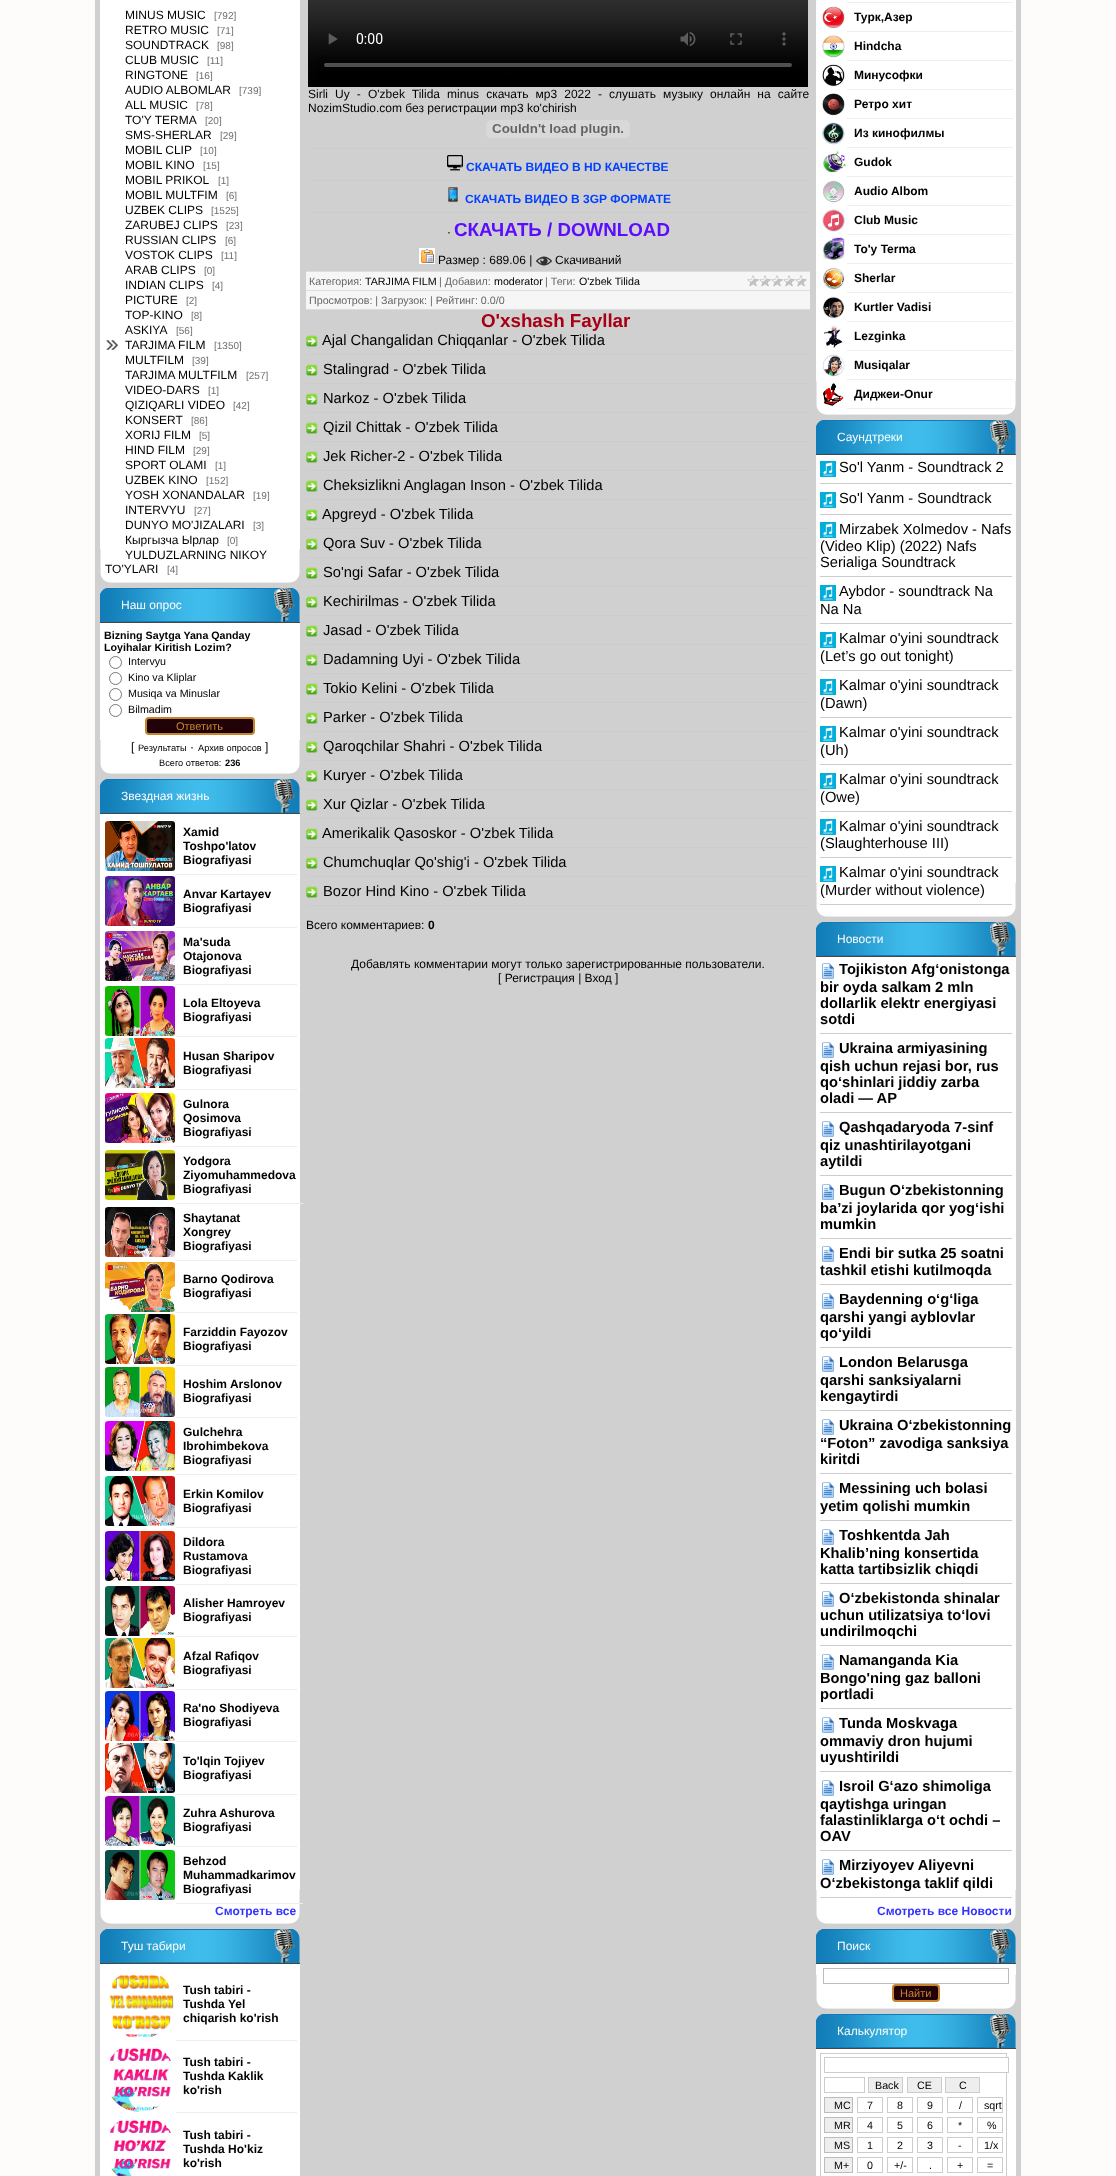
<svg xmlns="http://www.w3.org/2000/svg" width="1116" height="2176">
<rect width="100%" height="100%" fill="#fdfcfb"/>
<rect x="95" width="926" height="2176" fill="#d1d0d1"/>
<rect x="100" width="200" height="549" fill="#fff"/>
<image x="100" y="549" width="200" height="34" href="media/1.png"/>
<text x="125" y="19" style="font-family:Liberation Sans;font-size:12px;fill:#000">MINUS MUSIC</text>
<text x="214" y="19" style="font-family:Liberation Sans;font-size:10px;fill:#6e6e6e">[792]</text>
<text x="125" y="34" style="font-family:Liberation Sans;font-size:12px;fill:#000">RETRO MUSIC</text>
<text x="217" y="34" style="font-family:Liberation Sans;font-size:10px;fill:#6e6e6e">[71]</text>
<text x="125" y="49" style="font-family:Liberation Sans;font-size:12px;fill:#000">SOUNDTRACK</text>
<text x="217" y="49" style="font-family:Liberation Sans;font-size:10px;fill:#6e6e6e">[98]</text>
<text x="125" y="64" style="font-family:Liberation Sans;font-size:12px;fill:#000">CLUB MUSIC</text>
<text x="207" y="64" style="font-family:Liberation Sans;font-size:10px;fill:#6e6e6e">[11]</text>
<text x="125" y="79" style="font-family:Liberation Sans;font-size:12px;fill:#000">RINGTONE</text>
<text x="196" y="79" style="font-family:Liberation Sans;font-size:10px;fill:#6e6e6e">[16]</text>
<text x="125" y="94" style="font-family:Liberation Sans;font-size:12px;fill:#000">AUDIO ALBOMLAR</text>
<text x="239" y="94" style="font-family:Liberation Sans;font-size:10px;fill:#6e6e6e">[739]</text>
<text x="125" y="109" style="font-family:Liberation Sans;font-size:12px;fill:#000">ALL MUSIC</text>
<text x="196" y="109" style="font-family:Liberation Sans;font-size:10px;fill:#6e6e6e">[78]</text>
<text x="125" y="124" style="font-family:Liberation Sans;font-size:12px;fill:#000">TO'Y TERMA</text>
<text x="205" y="124" style="font-family:Liberation Sans;font-size:10px;fill:#6e6e6e">[20]</text>
<text x="125" y="139" style="font-family:Liberation Sans;font-size:12px;fill:#000">SMS-SHERLAR</text>
<text x="220" y="139" style="font-family:Liberation Sans;font-size:10px;fill:#6e6e6e">[29]</text>
<text x="125" y="154" style="font-family:Liberation Sans;font-size:12px;fill:#000">MOBIL CLIP</text>
<text x="200" y="154" style="font-family:Liberation Sans;font-size:10px;fill:#6e6e6e">[10]</text>
<text x="125" y="169" style="font-family:Liberation Sans;font-size:12px;fill:#000">MOBIL KINO</text>
<text x="203" y="169" style="font-family:Liberation Sans;font-size:10px;fill:#6e6e6e">[15]</text>
<text x="125" y="184" style="font-family:Liberation Sans;font-size:12px;fill:#000">MOBIL PRIKOL</text>
<text x="218" y="184" style="font-family:Liberation Sans;font-size:10px;fill:#6e6e6e">[1]</text>
<text x="125" y="199" style="font-family:Liberation Sans;font-size:12px;fill:#000">MOBIL MULTFIM</text>
<text x="226" y="199" style="font-family:Liberation Sans;font-size:10px;fill:#6e6e6e">[6]</text>
<text x="125" y="214" style="font-family:Liberation Sans;font-size:12px;fill:#000">UZBEK CLIPS</text>
<text x="211" y="214" style="font-family:Liberation Sans;font-size:10px;fill:#6e6e6e">[1525]</text>
<text x="125" y="229" style="font-family:Liberation Sans;font-size:12px;fill:#000">ZARUBEJ CLIPS</text>
<text x="226" y="229" style="font-family:Liberation Sans;font-size:10px;fill:#6e6e6e">[23]</text>
<text x="125" y="244" style="font-family:Liberation Sans;font-size:12px;fill:#000">RUSSIAN CLIPS</text>
<text x="225" y="244" style="font-family:Liberation Sans;font-size:10px;fill:#6e6e6e">[6]</text>
<text x="125" y="259" style="font-family:Liberation Sans;font-size:12px;fill:#000">VOSTOK CLIPS</text>
<text x="221" y="259" style="font-family:Liberation Sans;font-size:10px;fill:#6e6e6e">[11]</text>
<text x="125" y="274" style="font-family:Liberation Sans;font-size:12px;fill:#000">ARAB CLIPS</text>
<text x="204" y="274" style="font-family:Liberation Sans;font-size:10px;fill:#6e6e6e">[0]</text>
<text x="125" y="289" style="font-family:Liberation Sans;font-size:12px;fill:#000">INDIAN CLIPS</text>
<text x="212" y="289" style="font-family:Liberation Sans;font-size:10px;fill:#6e6e6e">[4]</text>
<text x="125" y="304" style="font-family:Liberation Sans;font-size:12px;fill:#000">PICTURE</text>
<text x="186" y="304" style="font-family:Liberation Sans;font-size:10px;fill:#6e6e6e">[2]</text>
<text x="125" y="319" style="font-family:Liberation Sans;font-size:12px;fill:#000">TOP-KINO</text>
<text x="191" y="319" style="font-family:Liberation Sans;font-size:10px;fill:#6e6e6e">[8]</text>
<text x="125" y="334" style="font-family:Liberation Sans;font-size:12px;fill:#000">ASKIYA</text>
<text x="176" y="334" style="font-family:Liberation Sans;font-size:10px;fill:#6e6e6e">[56]</text>
<image x="106" y="340" width="12" height="10" href="media/2.png"/>
<text x="125" y="349" style="font-family:Liberation Sans;font-size:12px;fill:#000">TARJIMA FILM</text>
<text x="214" y="349" style="font-family:Liberation Sans;font-size:10px;fill:#6e6e6e">[1350]</text>
<text x="125" y="364" style="font-family:Liberation Sans;font-size:12px;fill:#000">MULTFILM</text>
<text x="192" y="364" style="font-family:Liberation Sans;font-size:10px;fill:#6e6e6e">[39]</text>
<text x="125" y="379" style="font-family:Liberation Sans;font-size:12px;fill:#000">TARJIMA MULTFILM</text>
<text x="246" y="379" style="font-family:Liberation Sans;font-size:10px;fill:#6e6e6e">[257]</text>
<text x="125" y="394" style="font-family:Liberation Sans;font-size:12px;fill:#000">VIDEO-DARS</text>
<text x="208" y="394" style="font-family:Liberation Sans;font-size:10px;fill:#6e6e6e">[1]</text>
<text x="125" y="409" style="font-family:Liberation Sans;font-size:12px;fill:#000">QIZIQARLI VIDEO</text>
<text x="233" y="409" style="font-family:Liberation Sans;font-size:10px;fill:#6e6e6e">[42]</text>
<text x="125" y="424" style="font-family:Liberation Sans;font-size:12px;fill:#000">KONSERT</text>
<text x="191" y="424" style="font-family:Liberation Sans;font-size:10px;fill:#6e6e6e">[86]</text>
<text x="125" y="439" style="font-family:Liberation Sans;font-size:12px;fill:#000">XORIJ FILM</text>
<text x="199" y="439" style="font-family:Liberation Sans;font-size:10px;fill:#6e6e6e">[5]</text>
<text x="125" y="454" style="font-family:Liberation Sans;font-size:12px;fill:#000">HIND FILM</text>
<text x="193" y="454" style="font-family:Liberation Sans;font-size:10px;fill:#6e6e6e">[29]</text>
<text x="125" y="469" style="font-family:Liberation Sans;font-size:12px;fill:#000">SPORT OLAMI</text>
<text x="215" y="469" style="font-family:Liberation Sans;font-size:10px;fill:#6e6e6e">[1]</text>
<text x="125" y="484" style="font-family:Liberation Sans;font-size:12px;fill:#000">UZBEK KINO</text>
<text x="206" y="484" style="font-family:Liberation Sans;font-size:10px;fill:#6e6e6e">[152]</text>
<text x="125" y="499" style="font-family:Liberation Sans;font-size:12px;fill:#000">YOSH XONANDALAR</text>
<text x="253" y="499" style="font-family:Liberation Sans;font-size:10px;fill:#6e6e6e">[19]</text>
<text x="125" y="514" style="font-family:Liberation Sans;font-size:12px;fill:#000">INTERVYU</text>
<text x="194" y="514" style="font-family:Liberation Sans;font-size:10px;fill:#6e6e6e">[27]</text>
<text x="125" y="529" style="font-family:Liberation Sans;font-size:12px;fill:#000">DUNYO MO'JIZALARI</text>
<text x="253" y="529" style="font-family:Liberation Sans;font-size:10px;fill:#6e6e6e">[3]</text>
<text x="125" y="544" style="font-family:Liberation Sans;font-size:12px;fill:#000">Кыргызча Ырлар</text>
<text x="227" y="544" style="font-family:Liberation Sans;font-size:10px;fill:#6e6e6e">[0]</text>
<text x="125" y="559" style="font-family:Liberation Sans;font-size:12px;fill:#000">YULDUZLARNING NIKOY</text>
<text x="105" y="573" style="font-family:Liberation Sans;font-size:12px;fill:#000">TO'YLARI</text>
<text x="167" y="573" style="font-family:Liberation Sans;font-size:10px;fill:#6e6e6e">[4]</text>
<rect x="100" y="623" width="200" height="117" fill="#fff"/>
<image x="100" y="740" width="200" height="34" href="media/1.png"/>
<image x="100" y="588" width="200" height="34" href="media/3.png"/>
<rect x="100" y="622" width="200" height="1" fill="#474747"/>
<text x="121" y="609" style="font-family:Liberation Sans;font-size:12px;fill:#fdfdfc">Наш опрос</text>
<text x="104" y="639" style="font-family:Liberation Sans;font-size:10.7px;font-weight:bold;fill:#000">Bizning Saytga Yana Qanday</text>
<text x="104" y="651" style="font-family:Liberation Sans;font-size:10.7px;font-weight:bold;fill:#000">Loyihalar Kiritish Lozim?</text>
<circle cx="115.5" cy="662.5" r="6" fill="none" stroke="#767676"/>
<text x="128" y="665" style="font-family:Liberation Sans;font-size:10.7px;fill:#000">Intervyu</text>
<circle cx="115.5" cy="678.5" r="6" fill="none" stroke="#767676"/>
<text x="128" y="681" style="font-family:Liberation Sans;font-size:10.7px;fill:#000">Kino va Kliplar</text>
<circle cx="115.5" cy="694.5" r="6" fill="none" stroke="#767676"/>
<text x="128" y="697" style="font-family:Liberation Sans;font-size:10.7px;fill:#000">Musiqa va Minuslar</text>
<circle cx="115.5" cy="710.5" r="6" fill="none" stroke="#767676"/>
<text x="128" y="713" style="font-family:Liberation Sans;font-size:10.7px;fill:#000">Bilmadim</text>
<rect x="146" y="718" width="108" height="16" rx="3" fill="#210208" stroke="#c7842c" stroke-width="2"/>
<text x="176" y="730" style="font-family:Liberation Sans;font-size:11px;fill:#c7842c">Ответить</text>
<text x="131" y="751" style="font-family:Liberation Sans;font-size:12px;fill:#000">[</text>
<text x="138" y="751" style="font-family:Liberation Sans;font-size:9.25px;fill:#000">Результаты</text>
<text x="190" y="751" style="font-family:Liberation Sans;font-size:12px;fill:#000">·</text>
<text x="198" y="751" style="font-family:Liberation Sans;font-size:9.25px;fill:#000">Архив опросов</text>
<text x="265" y="751" style="font-family:Liberation Sans;font-size:12px;fill:#000">]</text>
<text x="159" y="766" style="font-family:Liberation Sans;font-size:9.25px;fill:#000">Всего ответов:</text>
<text x="225" y="766" style="font-family:Liberation Sans;font-size:9.25px;font-weight:bold;fill:#000">236</text>
<rect x="100" y="814" width="200" height="1076" fill="#fff"/>
<image x="100" y="1890" width="200" height="34" href="media/1.png"/>
<image x="100" y="779" width="200" height="34" href="media/3.png"/>
<rect x="100" y="813" width="200" height="1" fill="#474747"/>
<text x="121" y="800" style="font-family:Liberation Sans;font-size:12px;fill:#fdfdfc">Звездная жизнь</text>
<image x="105" y="821" width="70" height="50" href="media/4.png"/>
<rect x="176" y="874" width="121" height="1" fill="#efeded"/>
<text x="183" y="836" style="font-family:Liberation Sans;font-size:12px;font-weight:bold;fill:#000">Xamid</text>
<text x="183" y="850" style="font-family:Liberation Sans;font-size:12px;font-weight:bold;fill:#000">Toshpo'latov</text>
<text x="183" y="864" style="font-family:Liberation Sans;font-size:12px;font-weight:bold;fill:#000">Biografiyasi</text>
<image x="105" y="876" width="70" height="50" href="media/5.png"/>
<rect x="176" y="927" width="121" height="1" fill="#efeded"/>
<text x="183" y="898" style="font-family:Liberation Sans;font-size:12px;font-weight:bold;fill:#000">Anvar Kartayev</text>
<text x="183" y="912" style="font-family:Liberation Sans;font-size:12px;font-weight:bold;fill:#000">Biografiyasi</text>
<image x="105" y="931" width="70" height="50" href="media/6.png"/>
<rect x="176" y="984" width="121" height="1" fill="#efeded"/>
<text x="183" y="946" style="font-family:Liberation Sans;font-size:12px;font-weight:bold;fill:#000">Ma'suda</text>
<text x="183" y="960" style="font-family:Liberation Sans;font-size:12px;font-weight:bold;fill:#000">Otajonova</text>
<text x="183" y="974" style="font-family:Liberation Sans;font-size:12px;font-weight:bold;fill:#000">Biografiyasi</text>
<image x="105" y="986" width="70" height="50" href="media/7.png"/>
<rect x="176" y="1036" width="121" height="1" fill="#efeded"/>
<text x="183" y="1007" style="font-family:Liberation Sans;font-size:12px;font-weight:bold;fill:#000">Lola Eltoyeva</text>
<text x="183" y="1021" style="font-family:Liberation Sans;font-size:12px;font-weight:bold;fill:#000">Biografiyasi</text>
<image x="105" y="1038" width="70" height="50" href="media/8.png"/>
<rect x="176" y="1089" width="121" height="1" fill="#efeded"/>
<text x="183" y="1060" style="font-family:Liberation Sans;font-size:12px;font-weight:bold;fill:#000">Husan Sharipov</text>
<text x="183" y="1074" style="font-family:Liberation Sans;font-size:12px;font-weight:bold;fill:#000">Biografiyasi</text>
<image x="105" y="1093" width="70" height="50" href="media/9.png"/>
<rect x="176" y="1146" width="121" height="1" fill="#efeded"/>
<text x="183" y="1108" style="font-family:Liberation Sans;font-size:12px;font-weight:bold;fill:#000">Gulnora</text>
<text x="183" y="1122" style="font-family:Liberation Sans;font-size:12px;font-weight:bold;fill:#000">Qosimova</text>
<text x="183" y="1136" style="font-family:Liberation Sans;font-size:12px;font-weight:bold;fill:#000">Biografiyasi</text>
<image x="105" y="1150" width="70" height="50" href="media/10.png"/>
<rect x="176" y="1203" width="127" height="1" fill="#efeded"/>
<text x="183" y="1165" style="font-family:Liberation Sans;font-size:12px;font-weight:bold;fill:#000">Yodgora</text>
<text x="183" y="1179" style="font-family:Liberation Sans;font-size:12px;font-weight:bold;fill:#000">Ziyomuhammedova</text>
<text x="183" y="1193" style="font-family:Liberation Sans;font-size:12px;font-weight:bold;fill:#000">Biografiyasi</text>
<image x="105" y="1207" width="70" height="50" href="media/11.png"/>
<rect x="176" y="1260" width="121" height="1" fill="#efeded"/>
<text x="183" y="1222" style="font-family:Liberation Sans;font-size:12px;font-weight:bold;fill:#000">Shaytanat</text>
<text x="183" y="1236" style="font-family:Liberation Sans;font-size:12px;font-weight:bold;fill:#000">Xongrey</text>
<text x="183" y="1250" style="font-family:Liberation Sans;font-size:12px;font-weight:bold;fill:#000">Biografiyasi</text>
<image x="105" y="1262" width="70" height="50" href="media/12.png"/>
<rect x="176" y="1312" width="121" height="1" fill="#efeded"/>
<text x="183" y="1283" style="font-family:Liberation Sans;font-size:12px;font-weight:bold;fill:#000">Barno Qodirova</text>
<text x="183" y="1297" style="font-family:Liberation Sans;font-size:12px;font-weight:bold;fill:#000">Biografiyasi</text>
<image x="105" y="1314" width="70" height="50" href="media/13.png"/>
<rect x="176" y="1365" width="121" height="1" fill="#efeded"/>
<text x="183" y="1336" style="font-family:Liberation Sans;font-size:12px;font-weight:bold;fill:#000">Farziddin Fayozov</text>
<text x="183" y="1350" style="font-family:Liberation Sans;font-size:12px;font-weight:bold;fill:#000">Biografiyasi</text>
<image x="105" y="1367" width="70" height="50" href="media/14.png"/>
<rect x="176" y="1417" width="121" height="1" fill="#efeded"/>
<text x="183" y="1388" style="font-family:Liberation Sans;font-size:12px;font-weight:bold;fill:#000">Hoshim Arslonov</text>
<text x="183" y="1402" style="font-family:Liberation Sans;font-size:12px;font-weight:bold;fill:#000">Biografiyasi</text>
<image x="105" y="1421" width="70" height="50" href="media/15.png"/>
<rect x="176" y="1474" width="121" height="1" fill="#efeded"/>
<text x="183" y="1436" style="font-family:Liberation Sans;font-size:12px;font-weight:bold;fill:#000">Gulchehra</text>
<text x="183" y="1450" style="font-family:Liberation Sans;font-size:12px;font-weight:bold;fill:#000">Ibrohimbekova</text>
<text x="183" y="1464" style="font-family:Liberation Sans;font-size:12px;font-weight:bold;fill:#000">Biografiyasi</text>
<image x="105" y="1476" width="70" height="50" href="media/16.png"/>
<rect x="176" y="1527" width="121" height="1" fill="#efeded"/>
<text x="183" y="1498" style="font-family:Liberation Sans;font-size:12px;font-weight:bold;fill:#000">Erkin Komilov</text>
<text x="183" y="1512" style="font-family:Liberation Sans;font-size:12px;font-weight:bold;fill:#000">Biografiyasi</text>
<image x="105" y="1531" width="70" height="50" href="media/17.png"/>
<rect x="176" y="1584" width="121" height="1" fill="#efeded"/>
<text x="183" y="1546" style="font-family:Liberation Sans;font-size:12px;font-weight:bold;fill:#000">Dildora</text>
<text x="183" y="1560" style="font-family:Liberation Sans;font-size:12px;font-weight:bold;fill:#000">Rustamova</text>
<text x="183" y="1574" style="font-family:Liberation Sans;font-size:12px;font-weight:bold;fill:#000">Biografiyasi</text>
<image x="105" y="1586" width="70" height="50" href="media/18.png"/>
<rect x="176" y="1636" width="121" height="1" fill="#efeded"/>
<text x="183" y="1607" style="font-family:Liberation Sans;font-size:12px;font-weight:bold;fill:#000">Alisher Hamroyev</text>
<text x="183" y="1621" style="font-family:Liberation Sans;font-size:12px;font-weight:bold;fill:#000">Biografiyasi</text>
<image x="105" y="1638" width="70" height="50" href="media/19.png"/>
<rect x="176" y="1689" width="121" height="1" fill="#efeded"/>
<text x="183" y="1660" style="font-family:Liberation Sans;font-size:12px;font-weight:bold;fill:#000">Afzal Rafiqov</text>
<text x="183" y="1674" style="font-family:Liberation Sans;font-size:12px;font-weight:bold;fill:#000">Biografiyasi</text>
<image x="105" y="1691" width="70" height="50" href="media/20.png"/>
<rect x="176" y="1741" width="121" height="1" fill="#efeded"/>
<text x="183" y="1712" style="font-family:Liberation Sans;font-size:12px;font-weight:bold;fill:#000">Ra'no Shodiyeva</text>
<text x="183" y="1726" style="font-family:Liberation Sans;font-size:12px;font-weight:bold;fill:#000">Biografiyasi</text>
<image x="105" y="1743" width="70" height="50" href="media/21.png"/>
<rect x="176" y="1794" width="121" height="1" fill="#efeded"/>
<text x="183" y="1765" style="font-family:Liberation Sans;font-size:12px;font-weight:bold;fill:#000">To'lqin Tojiyev</text>
<text x="183" y="1779" style="font-family:Liberation Sans;font-size:12px;font-weight:bold;fill:#000">Biografiyasi</text>
<image x="105" y="1796" width="70" height="50" href="media/22.png"/>
<rect x="176" y="1846" width="121" height="1" fill="#efeded"/>
<text x="183" y="1817" style="font-family:Liberation Sans;font-size:12px;font-weight:bold;fill:#000">Zuhra Ashurova</text>
<text x="183" y="1831" style="font-family:Liberation Sans;font-size:12px;font-weight:bold;fill:#000">Biografiyasi</text>
<image x="105" y="1850" width="70" height="50" href="media/23.png"/>
<rect x="176" y="1903" width="127" height="1" fill="#efeded"/>
<text x="183" y="1865" style="font-family:Liberation Sans;font-size:12px;font-weight:bold;fill:#000">Behzod</text>
<text x="183" y="1879" style="font-family:Liberation Sans;font-size:12px;font-weight:bold;fill:#000">Muhammadkarimov</text>
<text x="183" y="1893" style="font-family:Liberation Sans;font-size:12px;font-weight:bold;fill:#000">Biografiyasi</text>
<text x="215" y="1915" style="font-family:Liberation Sans;font-size:12px;font-weight:bold;fill:#33f">Смотреть все</text>
<rect x="100" y="1964" width="200" height="212" fill="#fff"/>
<image x="100" y="1929" width="200" height="34" href="media/3.png"/>
<rect x="100" y="1963" width="200" height="1" fill="#474747"/>
<text x="121" y="1950" style="font-family:Liberation Sans;font-size:12px;fill:#fdfdfc">Туш табири</text>
<image x="109" y="1974" width="65" height="64" href="media/24.png"/>
<rect x="176" y="2040" width="121" height="1" fill="#efeded"/>
<text x="183" y="1994" style="font-family:Liberation Sans;font-size:12px;font-weight:bold;fill:#000">Tush tabiri -</text>
<text x="183" y="2008" style="font-family:Liberation Sans;font-size:12px;font-weight:bold;fill:#000">Tushda Yel</text>
<text x="183" y="2022" style="font-family:Liberation Sans;font-size:12px;font-weight:bold;fill:#000">chiqarish ko'rish</text>
<image x="109" y="2048" width="62" height="64" href="media/25.png"/>
<rect x="176" y="2112" width="121" height="1" fill="#efeded"/>
<text x="183" y="2066" style="font-family:Liberation Sans;font-size:12px;font-weight:bold;fill:#000">Tush tabiri -</text>
<text x="183" y="2080" style="font-family:Liberation Sans;font-size:12px;font-weight:bold;fill:#000">Tushda Kaklik</text>
<text x="183" y="2094" style="font-family:Liberation Sans;font-size:12px;font-weight:bold;fill:#000">ko'rish</text>
<image x="109" y="2120" width="62" height="56" href="media/26.png"/>
<text x="183" y="2139" style="font-family:Liberation Sans;font-size:12px;font-weight:bold;fill:#000">Tush tabiri -</text>
<text x="183" y="2153" style="font-family:Liberation Sans;font-size:12px;font-weight:bold;fill:#000">Tushda Ho'kiz</text>
<text x="183" y="2167" style="font-family:Liberation Sans;font-size:12px;font-weight:bold;fill:#000">ko'rish</text>
<image x="308" y="0" width="500" height="87" href="media/27.png"/>
<text x="308" y="98" word-spacing="3.75" style="font-family:Liberation Sans;font-size:12px;fill:#000">Sirli Uy - O'zbek Tilida minus скачать мр3 2022 - слушать музыку онлайн на сайте</text>
<text x="308" y="112" style="font-family:Liberation Sans;font-size:12px;fill:#000">NozimStudio.com без регистрации mp3 ko'chirish</text>
<image x="486" y="120" width="144" height="18" href="media/28.png"/>
<rect x="308" y="148" width="500" height="1" fill="#ccc"/>
<image x="447" y="155" width="16" height="16" href="media/29.png"/>
<text x="466" y="171" style="font-family:Liberation Sans;font-size:12px;font-weight:bold;fill:#0042ff">CКАЧАТЬ ВИДЕО В HD КАЧЕСТВЕ</text>
<rect x="308" y="180" width="500" height="1" fill="#ccc"/>
<image x="448" y="187" width="10" height="16" href="media/30.png"/>
<text x="465" y="203" style="font-family:Liberation Sans;font-size:12px;font-weight:bold;fill:#0042ff">СКАЧАТЬ ВИДЕО В 3GP ФОРМАТЕ</text>
<rect x="308" y="212" width="500" height="1" fill="#ccc"/>
<text x="447" y="236" style="font-family:Liberation Sans;font-size:12px;fill:#000">·</text>
<text x="454" y="236" style="font-family:Liberation Sans;font-size:18.75px;font-weight:bold;fill:#5c0cff">СКАЧАТЬ / DOWNLOAD</text>
<image x="419" y="248" width="16" height="16" href="media/31.png"/>
<text x="438" y="264" style="font-family:Liberation Sans;font-size:12px;fill:#000">Размер : 689.06 |</text>
<image x="536" y="256" width="16" height="10" href="media/32.png"/>
<text x="555" y="264" style="font-family:Liberation Sans;font-size:12px;fill:#000">Скачиваний</text>
<rect x="306" y="272" width="504" height="18" fill="#f6f6f6"/>
<rect x="306" y="271" width="504" height="1" fill="#ddd"/>
<rect x="306" y="290" width="504" height="1" fill="#ddd"/>
<text x="309" y="285" style="font-family:Liberation Sans;font-size:10.7px;fill:#666">Категория:</text>
<text x="365" y="285" style="font-family:Liberation Sans;font-size:10.7px;fill:#000">TARJIMA FILM</text>
<text x="439" y="285" style="font-family:Liberation Sans;font-size:10.7px;fill:#666">| Добавил:</text>
<text x="494" y="285" style="font-family:Liberation Sans;font-size:10.7px;fill:#000">moderator</text>
<text x="545" y="285" style="font-family:Liberation Sans;font-size:10.7px;fill:#666">| Теги:</text>
<text x="579" y="285" style="font-family:Liberation Sans;font-size:10.7px;fill:#000">O'zbek Tilida</text>
<image x="747" y="275" width="60" height="12" href="media/33.png"/>
<rect x="306" y="291" width="504" height="18" fill="#f6f6f6"/>
<rect x="306" y="309" width="504" height="1" fill="#ddd"/>
<text x="309" y="304" style="font-family:Liberation Sans;font-size:10.7px;fill:#666">Просмотров: | Загрузок: | Рейтинг: 0.0/0</text>
<text x="481" y="327" style="font-family:Liberation Sans;font-size:18.75px;font-weight:bold;fill:#a60012">O'xshash Fayllar</text>
<image x="306" y="335" width="12" height="12" href="media/34.png"/>
<text x="322" y="345" style="font-family:Liberation Sans;font-size:14.7px;fill:#000">Ajal Changalidan Chiqqanlar - O'zbek Tilida</text>
<rect x="306" y="354" width="504" height="1" fill="#ccc"/>
<image x="306" y="364" width="12" height="12" href="media/34.png"/>
<text x="323" y="374" style="font-family:Liberation Sans;font-size:14.7px;fill:#000">Stalingrad - O'zbek Tilida</text>
<rect x="306" y="383" width="504" height="1" fill="#ccc"/>
<image x="306" y="393" width="12" height="12" href="media/34.png"/>
<text x="323" y="403" style="font-family:Liberation Sans;font-size:14.7px;fill:#000">Narkoz - O'zbek Tilida</text>
<rect x="306" y="412" width="504" height="1" fill="#ccc"/>
<image x="306" y="422" width="12" height="12" href="media/34.png"/>
<text x="323" y="432" style="font-family:Liberation Sans;font-size:14.7px;fill:#000">Qizil Chittak - O'zbek Tilida</text>
<rect x="306" y="441" width="504" height="1" fill="#ccc"/>
<image x="306" y="451" width="12" height="12" href="media/34.png"/>
<text x="323" y="461" style="font-family:Liberation Sans;font-size:14.7px;fill:#000">Jek Richer-2 - O'zbek Tilida</text>
<rect x="306" y="470" width="504" height="1" fill="#ccc"/>
<image x="306" y="480" width="12" height="12" href="media/34.png"/>
<text x="323" y="490" style="font-family:Liberation Sans;font-size:14.7px;fill:#000">Cheksizlikni Anglagan Inson - O'zbek Tilida</text>
<rect x="306" y="499" width="504" height="1" fill="#ccc"/>
<image x="306" y="509" width="12" height="12" href="media/34.png"/>
<text x="322" y="519" style="font-family:Liberation Sans;font-size:14.7px;fill:#000">Apgreyd - O'zbek Tilida</text>
<rect x="306" y="528" width="504" height="1" fill="#ccc"/>
<image x="306" y="538" width="12" height="12" href="media/35.png"/>
<text x="323" y="548" style="font-family:Liberation Sans;font-size:14.7px;fill:#000">Qora Suv - O'zbek Tilida</text>
<rect x="306" y="557" width="504" height="1" fill="#ccc"/>
<image x="306" y="567" width="12" height="12" href="media/34.png"/>
<text x="323" y="577" style="font-family:Liberation Sans;font-size:14.7px;fill:#000">So'ngi Safar - O'zbek Tilida</text>
<rect x="306" y="586" width="504" height="1" fill="#ccc"/>
<image x="306" y="596" width="12" height="12" href="media/34.png"/>
<text x="323" y="606" style="font-family:Liberation Sans;font-size:14.7px;fill:#000">Kechirilmas - O'zbek Tilida</text>
<rect x="306" y="615" width="504" height="1" fill="#ccc"/>
<image x="306" y="625" width="12" height="12" href="media/34.png"/>
<text x="323" y="635" style="font-family:Liberation Sans;font-size:14.7px;fill:#000">Jasad - O'zbek Tilida</text>
<rect x="306" y="644" width="504" height="1" fill="#ccc"/>
<image x="306" y="654" width="12" height="12" href="media/34.png"/>
<text x="323" y="664" style="font-family:Liberation Sans;font-size:14.7px;fill:#000">Dadamning Uyi - O'zbek Tilida</text>
<rect x="306" y="673" width="504" height="1" fill="#ccc"/>
<image x="306" y="683" width="12" height="12" href="media/34.png"/>
<text x="323" y="693" style="font-family:Liberation Sans;font-size:14.7px;fill:#000">Tokio Kelini - O'zbek Tilida</text>
<rect x="306" y="702" width="504" height="1" fill="#ccc"/>
<image x="306" y="712" width="12" height="12" href="media/34.png"/>
<text x="323" y="722" style="font-family:Liberation Sans;font-size:14.7px;fill:#000">Parker - O'zbek Tilida</text>
<rect x="306" y="731" width="504" height="1" fill="#ccc"/>
<image x="306" y="741" width="12" height="12" href="media/34.png"/>
<text x="323" y="751" style="font-family:Liberation Sans;font-size:14.7px;fill:#000">Qaroqchilar Shahri - O'zbek Tilida</text>
<rect x="306" y="760" width="504" height="1" fill="#ccc"/>
<image x="306" y="770" width="12" height="12" href="media/34.png"/>
<text x="323" y="780" style="font-family:Liberation Sans;font-size:14.7px;fill:#000">Kuryer - O'zbek Tilida</text>
<rect x="306" y="789" width="504" height="1" fill="#ccc"/>
<image x="306" y="799" width="12" height="12" href="media/34.png"/>
<text x="323" y="809" style="font-family:Liberation Sans;font-size:14.7px;fill:#000">Xur Qizlar - O'zbek Tilida</text>
<rect x="306" y="818" width="504" height="1" fill="#ccc"/>
<image x="306" y="828" width="12" height="12" href="media/34.png"/>
<text x="322" y="838" style="font-family:Liberation Sans;font-size:14.7px;fill:#000">Amerikalik Qasoskor - O'zbek Tilida</text>
<rect x="306" y="847" width="504" height="1" fill="#ccc"/>
<image x="306" y="857" width="12" height="12" href="media/35.png"/>
<text x="323" y="867" style="font-family:Liberation Sans;font-size:14.7px;fill:#000">Chumchuqlar Qo'shig'i - O'zbek Tilida</text>
<rect x="306" y="876" width="504" height="1" fill="#ccc"/>
<image x="306" y="886" width="12" height="12" href="media/34.png"/>
<text x="323" y="896" style="font-family:Liberation Sans;font-size:14.7px;fill:#000">Bozor Hind Kino - O'zbek Tilida</text>
<rect x="306" y="905" width="504" height="1" fill="#ccc"/>
<text x="306" y="929" style="font-family:Liberation Sans;font-size:12px;fill:#000">Всего комментариев:</text>
<text x="428" y="929" style="font-family:Liberation Sans;font-size:12px;font-weight:bold;fill:#000">0</text>
<text x="351" y="968" style="font-family:Liberation Sans;font-size:12px;fill:#000">Добавлять комментарии могут только зарегистрированные пользователи.</text>
<text x="498" y="982" style="font-family:Liberation Sans;font-size:12px;fill:#000">[ Регистрация | Вход ]</text>
<rect x="816" width="200" height="381" fill="#fff"/>
<image x="816" y="381" width="200" height="34" href="media/1.png"/>
<rect x="847" y="2" width="166" height="1" fill="#efeded"/>
<image x="822" y="6" width="23" height="23" href="media/36.png"/>
<rect x="847" y="31" width="166" height="1" fill="#efeded"/>
<text x="854" y="21" style="font-family:Liberation Sans;font-size:12px;font-weight:bold;fill:#000">Турк,Азер</text>
<image x="822" y="35" width="23" height="23" href="media/37.png"/>
<rect x="847" y="60" width="166" height="1" fill="#efeded"/>
<text x="854" y="50" style="font-family:Liberation Sans;font-size:12px;font-weight:bold;fill:#000">Hindcha</text>
<image x="822" y="64" width="23" height="23" href="media/38.png"/>
<rect x="847" y="89" width="166" height="1" fill="#efeded"/>
<text x="854" y="79" style="font-family:Liberation Sans;font-size:12px;font-weight:bold;fill:#000">Минусофки</text>
<image x="822" y="93" width="23" height="23" href="media/39.png"/>
<rect x="847" y="118" width="166" height="1" fill="#efeded"/>
<text x="854" y="108" style="font-family:Liberation Sans;font-size:12px;font-weight:bold;fill:#000">Ретро хит</text>
<image x="822" y="122" width="23" height="23" href="media/40.png"/>
<rect x="847" y="147" width="166" height="1" fill="#efeded"/>
<text x="854" y="137" style="font-family:Liberation Sans;font-size:12px;font-weight:bold;fill:#000">Из кинофилмы</text>
<image x="823" y="151" width="23" height="22" href="media/41.png"/>
<rect x="847" y="176" width="166" height="1" fill="#efeded"/>
<text x="854" y="166" style="font-family:Liberation Sans;font-size:12px;font-weight:bold;fill:#000">Gudok</text>
<image x="822" y="180" width="23" height="23" href="media/42.png"/>
<rect x="847" y="205" width="166" height="1" fill="#efeded"/>
<text x="854" y="195" style="font-family:Liberation Sans;font-size:12px;font-weight:bold;fill:#000">Audio Albom</text>
<image x="822" y="209" width="23" height="23" href="media/43.png"/>
<rect x="847" y="234" width="166" height="1" fill="#efeded"/>
<text x="854" y="224" style="font-family:Liberation Sans;font-size:12px;font-weight:bold;fill:#000">Club Music</text>
<image x="823" y="237" width="22" height="23" href="media/44.png"/>
<rect x="847" y="263" width="166" height="1" fill="#efeded"/>
<text x="854" y="253" style="font-family:Liberation Sans;font-size:12px;font-weight:bold;fill:#000">To'y Terma</text>
<image x="822" y="267" width="23" height="23" href="media/45.png"/>
<rect x="847" y="292" width="166" height="1" fill="#efeded"/>
<text x="854" y="282" style="font-family:Liberation Sans;font-size:12px;font-weight:bold;fill:#000">Sherlar</text>
<image x="822" y="296" width="23" height="23" href="media/46.png"/>
<rect x="847" y="321" width="166" height="1" fill="#efeded"/>
<text x="854" y="311" style="font-family:Liberation Sans;font-size:12px;font-weight:bold;fill:#000">Kurtler Vadisi</text>
<image x="823" y="325" width="20" height="23" href="media/47.png"/>
<rect x="847" y="350" width="166" height="1" fill="#efeded"/>
<text x="854" y="340" style="font-family:Liberation Sans;font-size:12px;font-weight:bold;fill:#000">Lezginka</text>
<image x="822" y="354" width="23" height="23" href="media/48.png"/>
<rect x="847" y="379" width="166" height="1" fill="#efeded"/>
<text x="854" y="369" style="font-family:Liberation Sans;font-size:12px;font-weight:bold;fill:#000">Musiqalar</text>
<image x="823" y="383" width="21" height="23" href="media/49.png"/>
<rect x="847" y="408" width="166" height="1" fill="#efeded"/>
<text x="854" y="398" style="font-family:Liberation Sans;font-size:12px;font-weight:bold;fill:#000">Диджеи-Onur</text>
<rect x="816" y="455" width="200" height="428" fill="#fff"/>
<image x="816" y="883" width="200" height="34" href="media/1.png"/>
<image x="816" y="420" width="200" height="34" href="media/3.png"/>
<rect x="816" y="454" width="200" height="1" fill="#474747"/>
<text x="837" y="441" style="font-family:Liberation Sans;font-size:12px;fill:#fdfdfc">Саундтреки</text>
<image x="820" y="461" width="16" height="16" href="media/50.png"/>
<text x="839" y="472" style="font-family:Liberation Sans;font-size:14.7px;fill:#000">So'l Yanm - Soundtrack 2</text>
<rect x="820" y="483" width="192" height="1" fill="#ccc"/>
<image x="820" y="492" width="16" height="16" href="media/50.png"/>
<text x="839" y="503" style="font-family:Liberation Sans;font-size:14.7px;fill:#000">So'l Yanm - Soundtrack</text>
<rect x="820" y="514" width="192" height="1" fill="#ccc"/>
<image x="820" y="522" width="16" height="16" href="media/50.png"/>
<text x="839" y="534" style="font-family:Liberation Sans;font-size:14.7px;fill:#000">Mirzabek Xolmedov - Nafs</text>
<text x="820" y="551" style="font-family:Liberation Sans;font-size:14.7px;fill:#000">(Video Klip) (2022) Nafs</text>
<text x="820" y="567" style="font-family:Liberation Sans;font-size:14.7px;fill:#000">Serialiga Soundtrack</text>
<rect x="820" y="576" width="192" height="1" fill="#ccc"/>
<image x="820" y="585" width="16" height="16" href="media/50.png"/>
<text x="839" y="596" style="font-family:Liberation Sans;font-size:14.7px;fill:#000">Aybdor - soundtrack Na</text>
<text x="820" y="614" style="font-family:Liberation Sans;font-size:14.7px;fill:#000">Na Na</text>
<rect x="820" y="623" width="192" height="1" fill="#ccc"/>
<image x="820" y="632" width="16" height="16" href="media/50.png"/>
<text x="839" y="643" style="font-family:Liberation Sans;font-size:14.7px;fill:#000">Kalmar o'yini soundtrack</text>
<text x="820" y="661" style="font-family:Liberation Sans;font-size:14.7px;fill:#000">(Let’s go out tonight)</text>
<rect x="820" y="670" width="192" height="1" fill="#ccc"/>
<image x="820" y="679" width="16" height="16" href="media/50.png"/>
<text x="839" y="690" style="font-family:Liberation Sans;font-size:14.7px;fill:#000">Kalmar o'yini soundtrack</text>
<text x="820" y="708" style="font-family:Liberation Sans;font-size:14.7px;fill:#000">(Dawn)</text>
<rect x="820" y="717" width="192" height="1" fill="#ccc"/>
<image x="820" y="726" width="16" height="16" href="media/50.png"/>
<text x="839" y="737" style="font-family:Liberation Sans;font-size:14.7px;fill:#000">Kalmar o'yini soundtrack</text>
<text x="820" y="755" style="font-family:Liberation Sans;font-size:14.7px;fill:#000">(Uh)</text>
<rect x="820" y="764" width="192" height="1" fill="#ccc"/>
<image x="820" y="773" width="16" height="16" href="media/50.png"/>
<text x="839" y="784" style="font-family:Liberation Sans;font-size:14.7px;fill:#000">Kalmar o'yini soundtrack</text>
<text x="820" y="802" style="font-family:Liberation Sans;font-size:14.7px;fill:#000">(Owe)</text>
<rect x="820" y="811" width="192" height="1" fill="#ccc"/>
<image x="820" y="819" width="16" height="16" href="media/50.png"/>
<text x="839" y="831" style="font-family:Liberation Sans;font-size:14.7px;fill:#000">Kalmar o'yini soundtrack</text>
<text x="820" y="848" style="font-family:Liberation Sans;font-size:14.7px;fill:#000">(Slaughterhouse III)</text>
<rect x="820" y="857" width="192" height="1" fill="#ccc"/>
<image x="820" y="866" width="16" height="16" href="media/50.png"/>
<text x="839" y="877" style="font-family:Liberation Sans;font-size:14.7px;fill:#000">Kalmar o'yini soundtrack</text>
<text x="820" y="895" style="font-family:Liberation Sans;font-size:14.7px;fill:#000">(Murder without violence)</text>
<rect x="820" y="904" width="192" height="1" fill="#ccc"/>
<rect x="816" y="957" width="200" height="933" fill="#fff"/>
<image x="816" y="1890" width="200" height="34" href="media/1.png"/>
<image x="816" y="922" width="200" height="34" href="media/3.png"/>
<rect x="816" y="956" width="200" height="1" fill="#474747"/>
<text x="837" y="943" style="font-family:Liberation Sans;font-size:12px;fill:#fdfdfc">Новости</text>
<image x="822" y="963" width="13" height="16" href="media/51.png"/>
<text x="839" y="974" style="font-family:Liberation Sans;font-size:14.7px;font-weight:bold;fill:#000">Tojikiston Afg‘onistonga</text>
<text x="820" y="992" style="font-family:Liberation Sans;font-size:14.7px;font-weight:bold;fill:#000">bir oyda salkam 2 mln</text>
<text x="820" y="1008" style="font-family:Liberation Sans;font-size:14.7px;font-weight:bold;fill:#000">dollarlik elektr energiyasi</text>
<text x="820" y="1024" style="font-family:Liberation Sans;font-size:14.7px;font-weight:bold;fill:#000">sotdi</text>
<rect x="820" y="1033" width="192" height="1" fill="#ccc"/>
<image x="822" y="1042" width="13" height="16" href="media/51.png"/>
<text x="839" y="1053" style="font-family:Liberation Sans;font-size:14.7px;font-weight:bold;fill:#000">Ukraina armiyasining</text>
<text x="820" y="1071" style="font-family:Liberation Sans;font-size:14.7px;font-weight:bold;fill:#000">qish uchun rejasi bor, rus</text>
<text x="820" y="1087" style="font-family:Liberation Sans;font-size:14.7px;font-weight:bold;fill:#000">qo‘shinlari jiddiy zarba</text>
<text x="820" y="1103" style="font-family:Liberation Sans;font-size:14.7px;font-weight:bold;fill:#000">oladi — AP</text>
<rect x="820" y="1112" width="192" height="1" fill="#ccc"/>
<image x="822" y="1121" width="13" height="16" href="media/51.png"/>
<text x="839" y="1132" style="font-family:Liberation Sans;font-size:14.7px;font-weight:bold;fill:#000">Qashqadaryoda 7-sinf</text>
<text x="820" y="1150" style="font-family:Liberation Sans;font-size:14.7px;font-weight:bold;fill:#000">qiz unashtirilayotgani</text>
<text x="820" y="1166" style="font-family:Liberation Sans;font-size:14.7px;font-weight:bold;fill:#000">aytildi</text>
<rect x="820" y="1175" width="192" height="1" fill="#ccc"/>
<image x="822" y="1184" width="13" height="16" href="media/51.png"/>
<text x="839" y="1195" style="font-family:Liberation Sans;font-size:14.7px;font-weight:bold;fill:#000">Bugun O‘zbekistonning</text>
<text x="820" y="1213" style="font-family:Liberation Sans;font-size:14.7px;font-weight:bold;fill:#000">ba’zi joylarida qor yog‘ishi</text>
<text x="820" y="1229" style="font-family:Liberation Sans;font-size:14.7px;font-weight:bold;fill:#000">mumkin</text>
<rect x="820" y="1238" width="192" height="1" fill="#ccc"/>
<image x="822" y="1246" width="13" height="16" href="media/51.png"/>
<text x="839" y="1258" style="font-family:Liberation Sans;font-size:14.7px;font-weight:bold;fill:#000">Endi bir sutka 25 soatni</text>
<text x="820" y="1275" style="font-family:Liberation Sans;font-size:14.7px;font-weight:bold;fill:#000">tashkil etishi kutilmoqda</text>
<rect x="820" y="1284" width="192" height="1" fill="#ccc"/>
<image x="822" y="1293" width="13" height="16" href="media/51.png"/>
<text x="839" y="1304" style="font-family:Liberation Sans;font-size:14.7px;font-weight:bold;fill:#000">Baydenning o‘g‘liga</text>
<text x="820" y="1322" style="font-family:Liberation Sans;font-size:14.7px;font-weight:bold;fill:#000">qarshi yangi ayblovlar</text>
<text x="820" y="1338" style="font-family:Liberation Sans;font-size:14.7px;font-weight:bold;fill:#000">qo‘yildi</text>
<rect x="820" y="1347" width="192" height="1" fill="#ccc"/>
<image x="822" y="1356" width="13" height="16" href="media/51.png"/>
<text x="839" y="1367" style="font-family:Liberation Sans;font-size:14.7px;font-weight:bold;fill:#000">London Belarusga</text>
<text x="820" y="1385" style="font-family:Liberation Sans;font-size:14.7px;font-weight:bold;fill:#000">qarshi sanksiyalarni</text>
<text x="820" y="1401" style="font-family:Liberation Sans;font-size:14.7px;font-weight:bold;fill:#000">kengaytirdi</text>
<rect x="820" y="1410" width="192" height="1" fill="#ccc"/>
<image x="822" y="1419" width="13" height="16" href="media/51.png"/>
<text x="839" y="1430" style="font-family:Liberation Sans;font-size:14.7px;font-weight:bold;fill:#000">Ukraina O‘zbekistonning</text>
<text x="820" y="1448" style="font-family:Liberation Sans;font-size:14.7px;font-weight:bold;fill:#000">“Foton” zavodiga sanksiya</text>
<text x="820" y="1464" style="font-family:Liberation Sans;font-size:14.7px;font-weight:bold;fill:#000">kiritdi</text>
<rect x="820" y="1473" width="192" height="1" fill="#ccc"/>
<image x="822" y="1482" width="13" height="16" href="media/51.png"/>
<text x="839" y="1493" style="font-family:Liberation Sans;font-size:14.7px;font-weight:bold;fill:#000">Messining uch bolasi</text>
<text x="820" y="1511" style="font-family:Liberation Sans;font-size:14.7px;font-weight:bold;fill:#000">yetim qolishi mumkin</text>
<rect x="820" y="1520" width="192" height="1" fill="#ccc"/>
<image x="822" y="1529" width="13" height="16" href="media/51.png"/>
<text x="839" y="1540" style="font-family:Liberation Sans;font-size:14.7px;font-weight:bold;fill:#000">Toshkentda Jah</text>
<text x="820" y="1558" style="font-family:Liberation Sans;font-size:14.7px;font-weight:bold;fill:#000">Khalib’ning konsertida</text>
<text x="820" y="1574" style="font-family:Liberation Sans;font-size:14.7px;font-weight:bold;fill:#000">katta tartibsizlik chiqdi</text>
<rect x="820" y="1583" width="192" height="1" fill="#ccc"/>
<image x="822" y="1591" width="13" height="16" href="media/51.png"/>
<text x="839" y="1603" style="font-family:Liberation Sans;font-size:14.7px;font-weight:bold;fill:#000">O‘zbekistonda shinalar</text>
<text x="820" y="1620" style="font-family:Liberation Sans;font-size:14.7px;font-weight:bold;fill:#000">uchun utilizatsiya to‘lovi</text>
<text x="820" y="1636" style="font-family:Liberation Sans;font-size:14.7px;font-weight:bold;fill:#000">undirilmoqchi</text>
<rect x="820" y="1645" width="192" height="1" fill="#ccc"/>
<image x="822" y="1654" width="13" height="16" href="media/51.png"/>
<text x="839" y="1665" style="font-family:Liberation Sans;font-size:14.7px;font-weight:bold;fill:#000">Namanganda Kia</text>
<text x="820" y="1683" style="font-family:Liberation Sans;font-size:14.7px;font-weight:bold;fill:#000">Bongo'ning gaz balloni</text>
<text x="820" y="1699" style="font-family:Liberation Sans;font-size:14.7px;font-weight:bold;fill:#000">portladi</text>
<rect x="820" y="1708" width="192" height="1" fill="#ccc"/>
<image x="822" y="1717" width="13" height="16" href="media/51.png"/>
<text x="839" y="1728" style="font-family:Liberation Sans;font-size:14.7px;font-weight:bold;fill:#000">Tunda Moskvaga</text>
<text x="820" y="1746" style="font-family:Liberation Sans;font-size:14.7px;font-weight:bold;fill:#000">ommaviy dron hujumi</text>
<text x="820" y="1762" style="font-family:Liberation Sans;font-size:14.7px;font-weight:bold;fill:#000">uyushtirildi</text>
<rect x="820" y="1771" width="192" height="1" fill="#ccc"/>
<image x="822" y="1780" width="13" height="16" href="media/51.png"/>
<text x="839" y="1791" style="font-family:Liberation Sans;font-size:14.7px;font-weight:bold;fill:#000">Isroil G‘azo shimoliga</text>
<text x="820" y="1809" style="font-family:Liberation Sans;font-size:14.7px;font-weight:bold;fill:#000">qaytishga uringan</text>
<text x="820" y="1825" style="font-family:Liberation Sans;font-size:14.7px;font-weight:bold;fill:#000">falastinliklarga o‘t ochdi –</text>
<text x="820" y="1841" style="font-family:Liberation Sans;font-size:14.7px;font-weight:bold;fill:#000">OAV</text>
<rect x="820" y="1850" width="192" height="1" fill="#ccc"/>
<image x="822" y="1859" width="13" height="16" href="media/51.png"/>
<text x="839" y="1870" style="font-family:Liberation Sans;font-size:14.7px;font-weight:bold;fill:#000">Mirziyoyev Aliyevni</text>
<text x="820" y="1888" style="font-family:Liberation Sans;font-size:14.7px;font-weight:bold;fill:#000">O‘zbekistonga taklif qildi</text>
<rect x="820" y="1897" width="192" height="1" fill="#ccc"/>
<text x="877" y="1915" style="font-family:Liberation Sans;font-size:12px;font-weight:bold;fill:#33f">Смотреть все Новости</text>
<rect x="816" y="1964" width="200" height="11" fill="#fff"/>
<image x="816" y="1975" width="200" height="34" href="media/1.png"/>
<image x="816" y="1929" width="200" height="34" href="media/3.png"/>
<rect x="816" y="1963" width="200" height="1" fill="#474747"/>
<text x="837" y="1950" style="font-family:Liberation Sans;font-size:12px;fill:#fdfdfc">Поиск</text>
<rect x="823.5" y="1968.5" width="185" height="15" fill="none" stroke="#bcbcbc"/>
<rect x="893" y="1985" width="46" height="16" rx="3" fill="#210208" stroke="#c7842c" stroke-width="2"/>
<text x="900" y="1997" style="font-family:Liberation Sans;font-size:11px;fill:#c7842c">Найти</text>
<rect x="816" y="2049" width="200" height="127" fill="#fff"/>
<image x="816" y="2014" width="200" height="34" href="media/3.png"/>
<rect x="816" y="2048" width="200" height="1" fill="#474747"/>
<text x="837" y="2035" style="font-family:Liberation Sans;font-size:12px;fill:#fdfdfc">Калькулятор</text>
<rect x="820" y="2053" width="187" height="123" fill="#ccc"/>
<rect x="821" y="2054" width="185" height="122" fill="#fff"/>
<rect x="1006" y="2058" width="1" height="14" fill="#fff"/>
<rect x="824.5" y="2057.5" width="184" height="15" fill="none" stroke="#ccc"/>
<rect x="824.5" y="2077.5" width="40" height="15" fill="none" stroke="#ccc"/>
<rect x="868.5" y="2077.5" width="34" height="15" fill="#eee" stroke="#ccc"/>
<text x="875" y="2089" style="font-family:Liberation Sans;font-size:10.7px;fill:#000">Back</text>
<rect x="907.5" y="2077.5" width="34" height="15" fill="#eee" stroke="#ccc"/>
<text x="917" y="2089" style="font-family:Liberation Sans;font-size:10.7px;fill:#000">CE</text>
<rect x="945.5" y="2077.5" width="34" height="15" fill="#eee" stroke="#ccc"/>
<text x="959" y="2089" style="font-family:Liberation Sans;font-size:10.7px;fill:#000">C</text>
<rect x="824.5" y="2097.5" width="28" height="15" fill="#eee" stroke="#bcbcbc"/>
<text x="834" y="2109" style="font-family:Liberation Sans;font-size:10.7px;fill:#000">MC</text>
<rect x="857.5" y="2097.5" width="25" height="15" fill="none" stroke="#ccc"/>
<text x="867" y="2109" style="font-family:Liberation Sans;font-size:10.7px;fill:#000">7</text>
<rect x="887.5" y="2097.5" width="25" height="15" fill="none" stroke="#ccc"/>
<text x="897" y="2109" style="font-family:Liberation Sans;font-size:10.7px;fill:#000">8</text>
<rect x="917.5" y="2097.5" width="25" height="15" fill="none" stroke="#ccc"/>
<text x="927" y="2109" style="font-family:Liberation Sans;font-size:10.7px;fill:#000">9</text>
<rect x="947.5" y="2097.5" width="25" height="15" fill="none" stroke="#ccc"/>
<text x="959" y="2109" style="font-family:Liberation Sans;font-size:10.7px;fill:#000">/</text>
<rect x="977.5" y="2097.5" width="25" height="15" fill="none" stroke="#ccc"/>
<text x="984" y="2109" style="font-family:Liberation Sans;font-size:10.7px;fill:#000">sqrt</text>
<rect x="824.5" y="2117.5" width="28" height="15" fill="#eee" stroke="#bcbcbc"/>
<text x="834" y="2129" style="font-family:Liberation Sans;font-size:10.7px;fill:#000">MR</text>
<rect x="857.5" y="2117.5" width="25" height="15" fill="none" stroke="#ccc"/>
<text x="867" y="2129" style="font-family:Liberation Sans;font-size:10.7px;fill:#000">4</text>
<rect x="887.5" y="2117.5" width="25" height="15" fill="none" stroke="#ccc"/>
<text x="897" y="2129" style="font-family:Liberation Sans;font-size:10.7px;fill:#000">5</text>
<rect x="917.5" y="2117.5" width="25" height="15" fill="none" stroke="#ccc"/>
<text x="927" y="2129" style="font-family:Liberation Sans;font-size:10.7px;fill:#000">6</text>
<rect x="947.5" y="2117.5" width="25" height="15" fill="none" stroke="#ccc"/>
<text x="958" y="2129" style="font-family:Liberation Sans;font-size:10.7px;fill:#000">*</text>
<rect x="977.5" y="2117.5" width="25" height="15" fill="none" stroke="#ccc"/>
<text x="987" y="2129" style="font-family:Liberation Sans;font-size:10.7px;fill:#000">%</text>
<rect x="824.5" y="2137.5" width="28" height="15" fill="#eee" stroke="#bcbcbc"/>
<text x="834" y="2149" style="font-family:Liberation Sans;font-size:10.7px;fill:#000">MS</text>
<rect x="857.5" y="2137.5" width="25" height="15" fill="none" stroke="#ccc"/>
<text x="867" y="2149" style="font-family:Liberation Sans;font-size:10.7px;fill:#000">1</text>
<rect x="887.5" y="2137.5" width="25" height="15" fill="none" stroke="#ccc"/>
<text x="897" y="2149" style="font-family:Liberation Sans;font-size:10.7px;fill:#000">2</text>
<rect x="917.5" y="2137.5" width="25" height="15" fill="none" stroke="#ccc"/>
<text x="927" y="2149" style="font-family:Liberation Sans;font-size:10.7px;fill:#000">3</text>
<rect x="947.5" y="2137.5" width="25" height="15" fill="none" stroke="#ccc"/>
<text x="958" y="2149" style="font-family:Liberation Sans;font-size:10.7px;fill:#000">-</text>
<rect x="977.5" y="2137.5" width="25" height="15" fill="none" stroke="#ccc"/>
<text x="984" y="2149" style="font-family:Liberation Sans;font-size:10.7px;fill:#000">1/x</text>
<rect x="824.5" y="2157.5" width="28" height="15" fill="#eee" stroke="#bcbcbc"/>
<text x="834" y="2169" style="font-family:Liberation Sans;font-size:10.7px;fill:#000">M+</text>
<rect x="857.5" y="2157.5" width="25" height="15" fill="none" stroke="#ccc"/>
<text x="867" y="2169" style="font-family:Liberation Sans;font-size:10.7px;fill:#000">0</text>
<rect x="887.5" y="2157.5" width="25" height="15" fill="none" stroke="#ccc"/>
<text x="894" y="2169" style="font-family:Liberation Sans;font-size:10.7px;fill:#000">+/-</text>
<rect x="917.5" y="2157.5" width="25" height="15" fill="none" stroke="#ccc"/>
<text x="929" y="2169" style="font-family:Liberation Sans;font-size:10.7px;fill:#000">.</text>
<rect x="947.5" y="2157.5" width="25" height="15" fill="none" stroke="#ccc"/>
<text x="957" y="2169" style="font-family:Liberation Sans;font-size:10.7px;fill:#000">+</text>
<rect x="977.5" y="2157.5" width="25" height="15" fill="none" stroke="#ccc"/>
<text x="987" y="2169" style="font-family:Liberation Sans;font-size:10.7px;fill:#000">=</text>
</svg>
